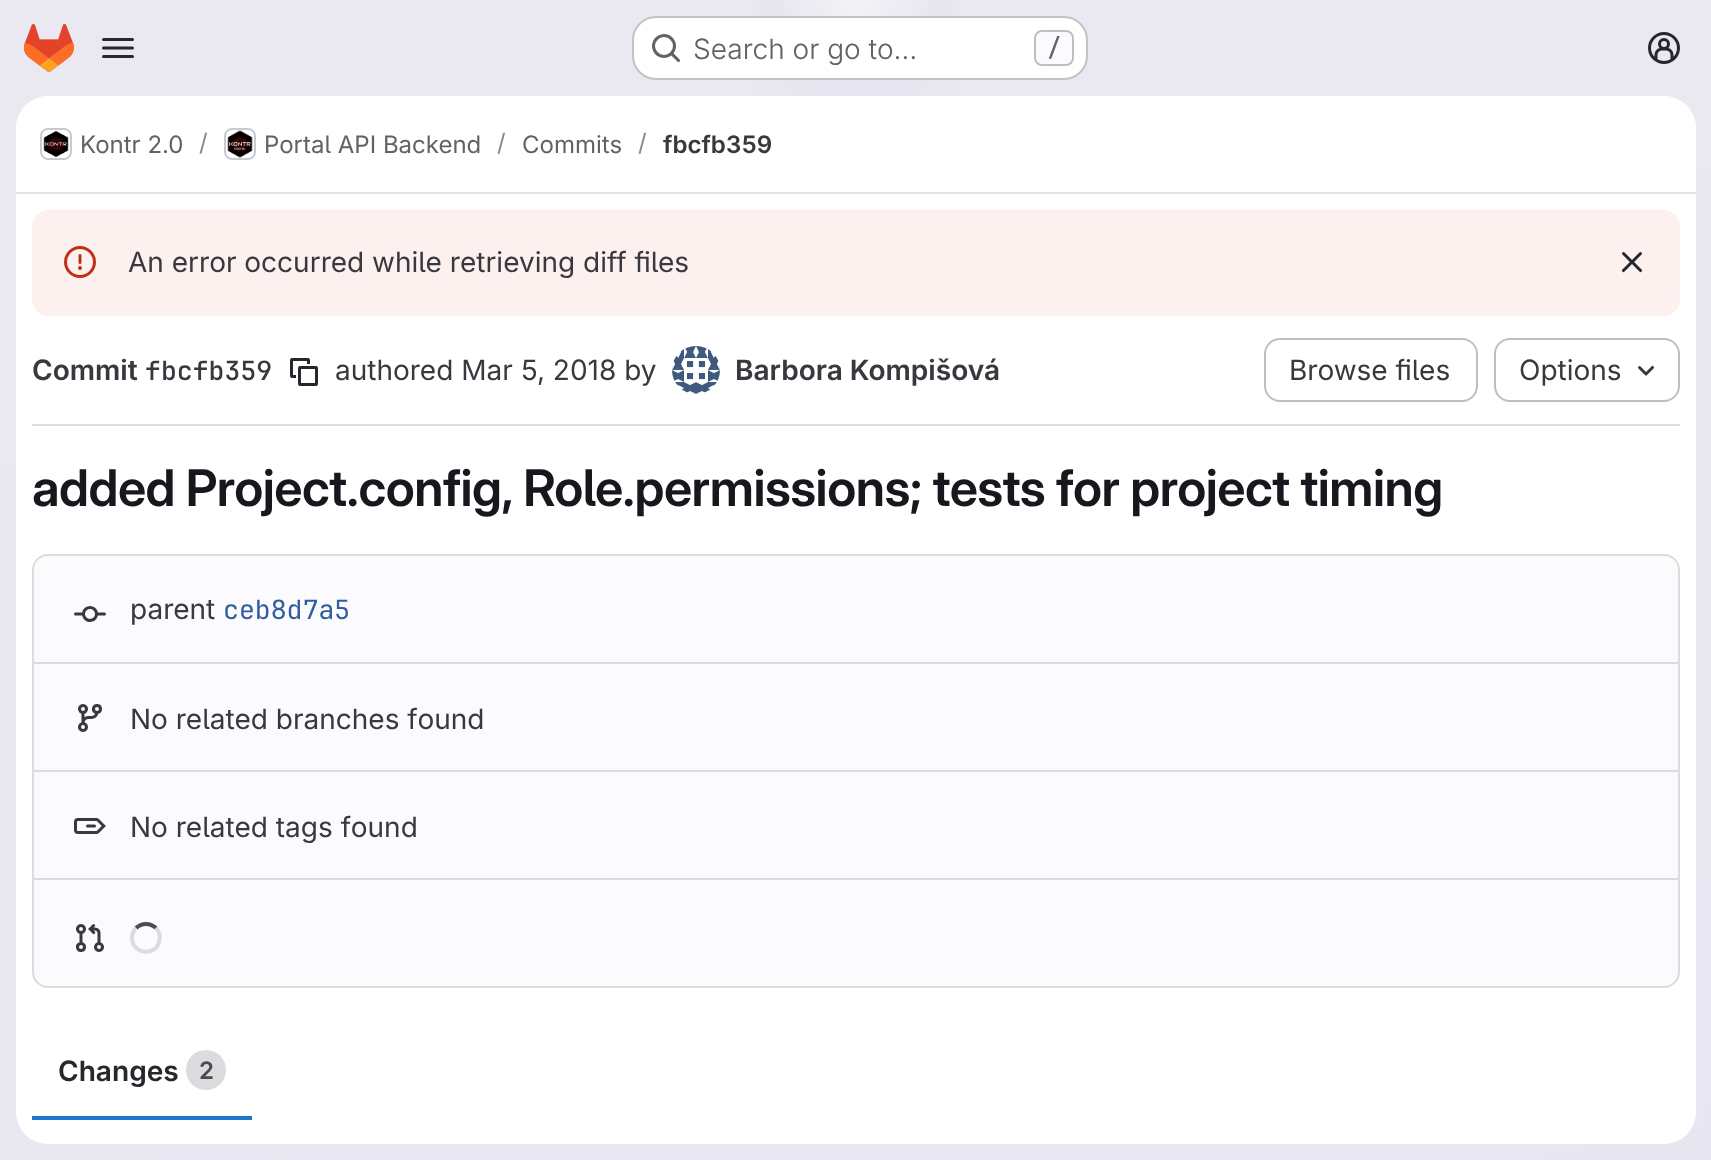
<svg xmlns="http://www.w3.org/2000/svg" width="1711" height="1160">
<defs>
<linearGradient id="g1" gradientUnits="userSpaceOnUse" x1="981" y1="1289" x2="731" y2="-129"><stop offset="0" stop-color="#e8e6f0"/><stop offset="0.7" stop-color="#eae9f2"/></linearGradient>
<radialGradient id="g2" gradientUnits="userSpaceOnUse" cx="0" cy="0" r="1" gradientTransform="matrix(856 0 0 1160 856 0)"><stop offset="0" stop-color="#e4e2ed"/><stop offset="0.16" stop-color="#e4e2ed" stop-opacity="0"/></radialGradient>
<radialGradient id="g3" gradientUnits="userSpaceOnUse" cx="0" cy="0" r="1" gradientTransform="matrix(856 0 0 1160 856 0)"><stop offset="0" stop-color="#e4e2ec"/><stop offset="0.12" stop-color="#e4e2ec" stop-opacity="0"/></radialGradient>
<radialGradient id="g4" gradientUnits="userSpaceOnUse" cx="856" cy="0" r="1442"><stop offset="0" stop-color="#fff" stop-opacity="0.6"/><stop offset="0.06" stop-color="#fff" stop-opacity="0"/></radialGradient>
</defs>
<rect width="100%" height="100%" fill="#fff"/>
<rect width="1711" height="1160" fill="url(#g1)"/>
<rect x="758" width="196" height="96" fill="url(#g2)"/>
<rect x="808" y="4" width="96" height="51" fill="url(#g3)"/>
<rect x="783" width="146" height="16" fill="url(#g4)"/>
<image x="24" y="24" width="50" height="48" href="media/1.png"/>
<image x="102" y="38" width="32" height="20" href="media/2.png"/>
<rect x="632" y="16" width="456" height="64" rx="24" fill="#fff"/>
<rect x="633" y="17" width="454" height="62" rx="23" fill="none" stroke="#0505063d" stroke-width="2"/>
<image x="652" y="34" width="29" height="29" href="media/3.png"/>
<text x="693" y="59" style="font-family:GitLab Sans;font-size:28px;font-weight:300;fill:#626168">Search or go to…</text>
<rect x="1035" y="31" width="38" height="34" rx="7" fill="#fbfafd" stroke="#bfbfc3" stroke-width="2"/>
<text x="1047" y="56" style="font-family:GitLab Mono;font-size:24px;font-weight:500;fill:#626168">/</text>
<image x="1648" y="32" width="32" height="32" href="media/4.png"/>
<rect x="16" y="96" width="1680" height="1048" rx="32" fill="#fff"/>
<path d="M48 96h1616c17.5 0 32 14.5 32 32v66h-1680v-66c0-17.5 14.5-32 32-32z" fill="#fff"/>
<rect x="16" y="192" width="1680" height="2" fill="#e1dfec"/>
<rect x="41" y="129" width="30" height="30" rx="7" fill="none" stroke="#dcdcde" stroke-width="2"/>
<image x="42" y="130" width="28" height="28" href="media/5.png"/>
<rect x="41" y="129" width="30" height="30" rx="7" fill="none" stroke="#05050614" stroke-width="2"/>
<text x="80" y="153" style="font-family:GitLab Sans;font-size:24px;fill:#626168">Kontr 2.0</text>
<text x="199" y="151" style="font-family:GitLab Sans;font-size:24px;fill:#89888d">/</text>
<rect x="225" y="129" width="30" height="30" rx="7" fill="none" stroke="#dcdcde" stroke-width="2"/>
<image x="227" y="130" width="26" height="28" href="media/6.png"/>
<rect x="225" y="129" width="30" height="30" rx="7" fill="none" stroke="#05050614" stroke-width="2"/>
<text x="264" y="153" style="font-family:GitLab Sans;font-size:24px;fill:#626168">Portal API Backend</text>
<text x="497" y="151" style="font-family:GitLab Sans;font-size:24px;fill:#89888d">/</text>
<text x="522" y="153" style="font-family:GitLab Sans;font-size:24px;fill:#626168">Commits</text>
<text x="638" y="151" style="font-family:GitLab Sans;font-size:24px;fill:#89888d">/</text>
<text x="663" y="153" style="font-family:GitLab Sans;font-size:24px;font-weight:600;fill:#3a383f">fbcfb359</text>
<rect x="32" y="210" width="1648" height="106" rx="16" fill="#fcf1ef"/>
<image x="64" y="246" width="32" height="32" href="media/7.png"/>
<text x="128" y="272" style="font-family:GitLab Sans;font-size:28px;fill:#3a383f">An error occurred while retrieving diff files</text>
<image x="1621" y="252" width="22" height="21" href="media/8.png"/>
<text x="32" y="380" style="font-family:GitLab Sans;font-size:28px;font-weight:600;fill:#3a383f">Commit</text>
<text x="145" y="380" style="font-family:GitLab Mono;font-size:26.5px;font-weight:600;fill:#3a383f">fbcfb359</text>
<image x="290" y="358" width="28" height="28" href="media/9.png"/>
<text x="335" y="380" style="font-family:GitLab Sans;font-size:28px;fill:#3a383f">authored Mar 5, 2018 by</text>
<circle cx="696" cy="370" r="23" fill="none" stroke="#e8e7e9" stroke-width="2"/>
<image x="672" y="346" width="48" height="48" href="media/10.png"/>
<text x="735" y="380" style="font-family:GitLab Sans;font-size:28px;font-weight:600;fill:#3a383f">Barbora Kompišová</text>
<rect x="1265" y="339" width="212" height="62" rx="15" fill="none" stroke="#bfbfc3" stroke-width="2"/>
<text x="1289" y="380" style="font-family:GitLab Sans;font-size:28px;fill:#3a383f">Browse files</text>
<rect x="1495" y="339" width="184" height="62" rx="15" fill="none" stroke="#bfbfc3" stroke-width="2"/>
<text x="1519" y="380" style="font-family:GitLab Sans;font-size:28px;fill:#3a383f">Options</text>
<image x="1638" y="365" width="17" height="11" href="media/11.png"/>
<rect x="32" y="424" width="1648" height="2" fill="#dcdcde"/>
<text x="32" y="506" style="font-family:'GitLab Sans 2';font-size:50.45px;font-weight:600;letter-spacing:-0.5px;fill:#18171d">added Project.config, Role.permissions; tests for project timing</text>
<rect x="33" y="555" width="1646" height="432" rx="15" fill="#fbfafd" stroke="#dcdcde" stroke-width="2"/>
<image x="74" y="606" width="32" height="16" href="media/12.png"/>
<text x="130" y="619" style="font-family:GitLab Sans;font-size:28px;fill:#3a383f">parent</text>
<text x="223" y="619" style="font-family:GitLab Mono;font-size:26.5px;fill:#2f5ca0">ceb8d7a5</text>
<rect x="34" y="662" width="1644" height="2" fill="#dcdcde"/>
<image x="78" y="704" width="24" height="28" href="media/13.png"/>
<text x="130" y="729" style="font-family:GitLab Sans;font-size:28px;fill:#3a383f">No related branches found</text>
<rect x="34" y="770" width="1644" height="2" fill="#dcdcde"/>
<image x="74" y="818" width="32" height="16" href="media/14.png"/>
<text x="130" y="837" style="font-family:GitLab Sans;font-size:28px;fill:#3a383f">No related tags found</text>
<rect x="34" y="878" width="1644" height="2" fill="#dcdcde"/>
<image x="75" y="924" width="29" height="28" href="media/15.png"/>
<path d="M136 928c5.5-5.5 14.5-5.5 20 0" fill="none" stroke="#4c4b51" stroke-width="4"/>
<path d="M156 928c3 3.5 4.5 8 3.5 12.5c-3 16.5-27.5 14-27.5-2.5c0-3.5 1.5-7.5 4-10" fill="none" stroke="#dcdcde" stroke-width="4"/>
<text x="58" y="1081" style="font-family:GitLab Sans;font-size:28px;font-weight:600;fill:#28272d">Changes</text>
<circle cx="206" cy="1070" r="20" fill="#dcdcde"/>
<text x="199" y="1079" style="font-family:GitLab Sans;font-size:24px;font-weight:600;fill:#4c4b51">2</text>
<rect x="32" y="1116" width="220" height="4" fill="#1f75cb"/>
</svg>
